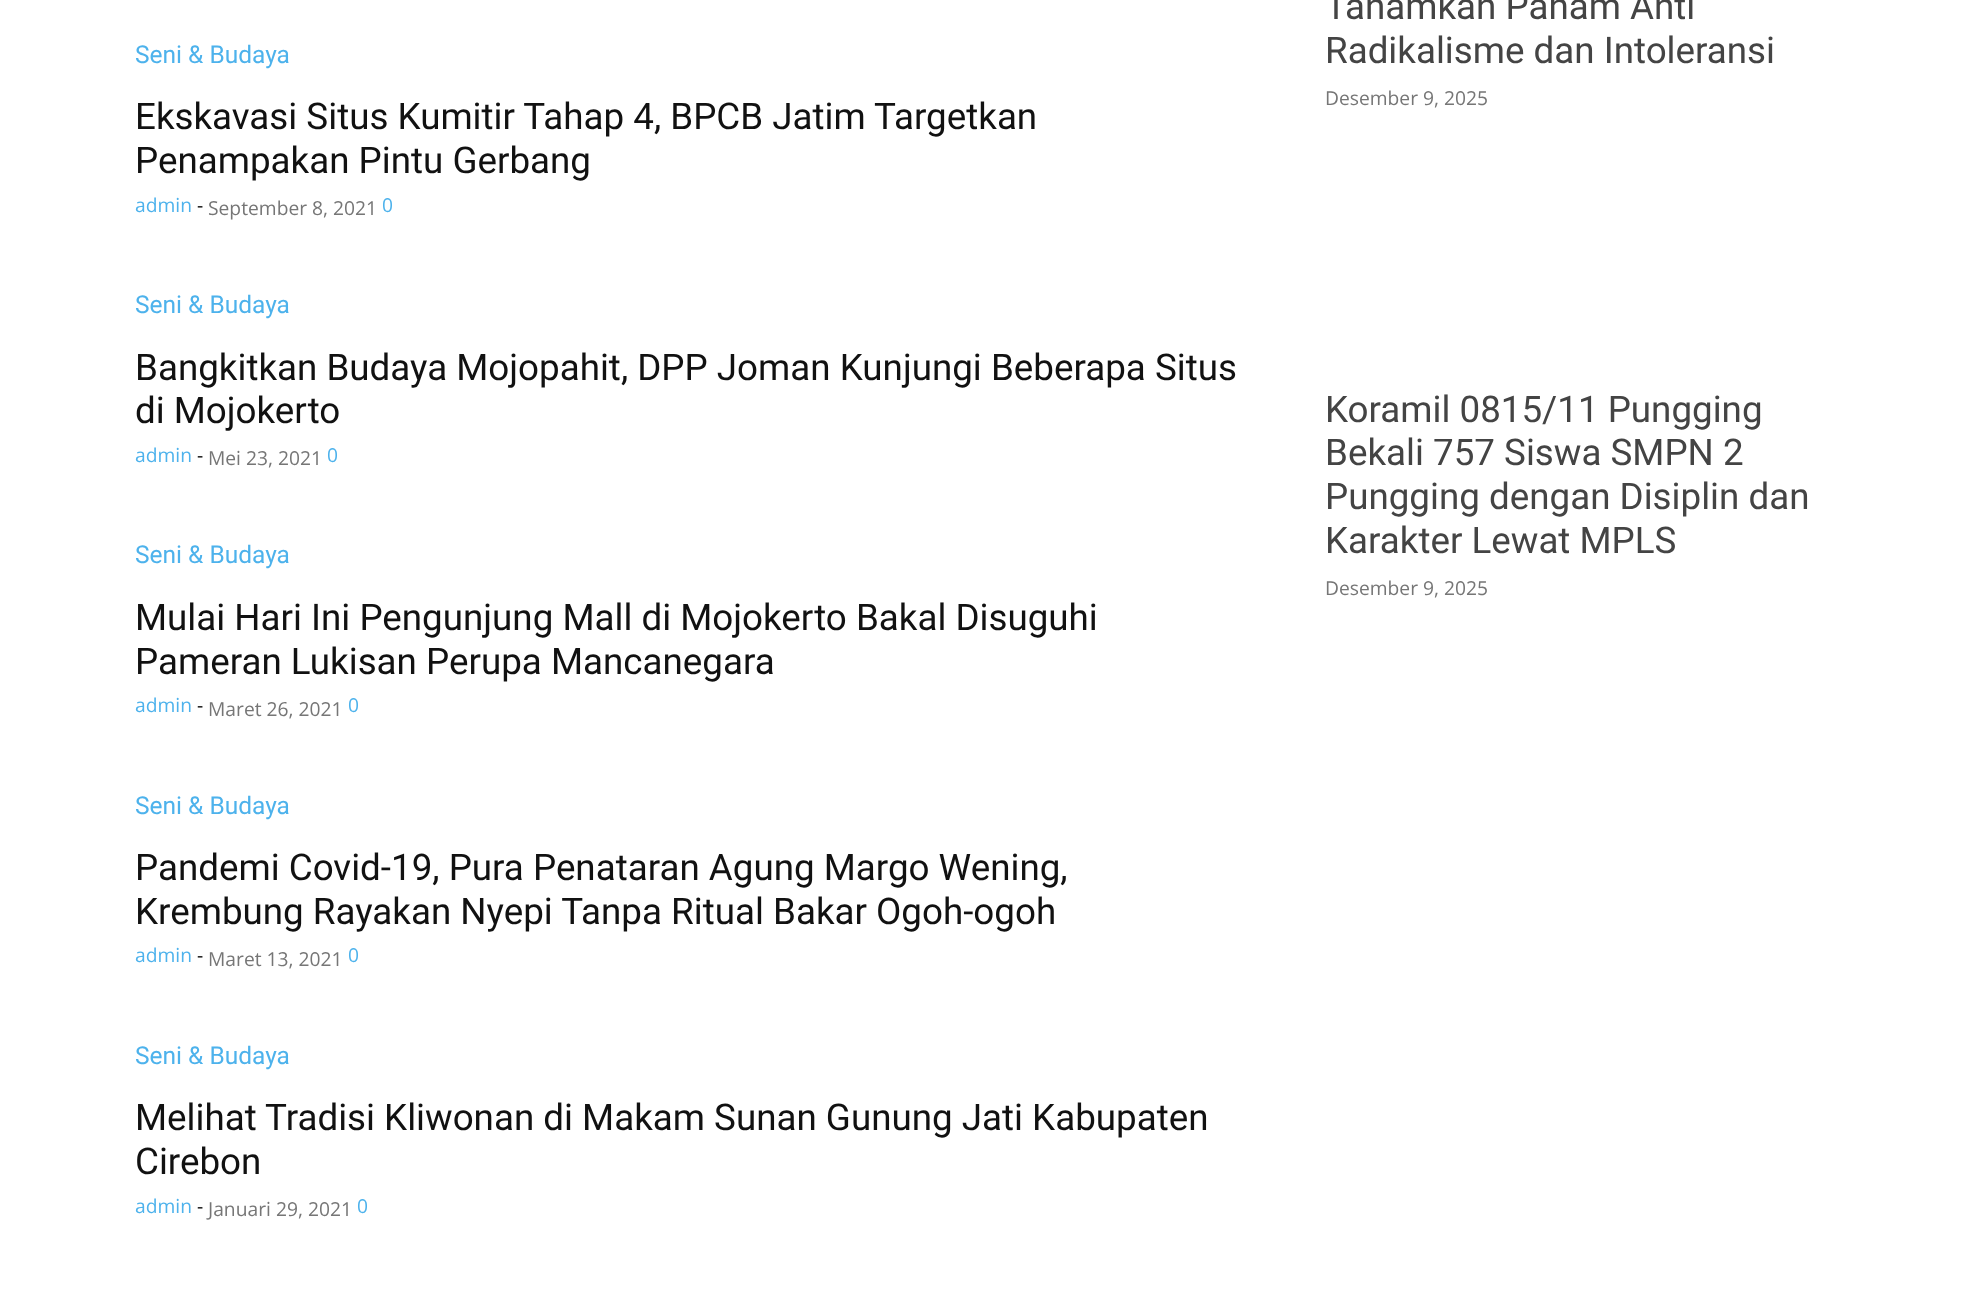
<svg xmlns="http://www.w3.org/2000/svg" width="1984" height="1295">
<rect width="100%" height="100%" fill="#fff"/>
<text x="135" y="63" style="font-family:Roboto;font-size:24.5px;fill:#4db2ec">Seni &amp; Budaya</text>
<text x="135" y="129" style="font-family:Roboto;font-size:36.75px;fill:#111">Ekskavasi Situs Kumitir Tahap 4, BPCB Jatim Targetkan</text>
<text x="135" y="173" style="font-family:Roboto;font-size:36.75px;fill:#111">Penampakan Pintu Gerbang</text>
<text x="135" y="212" style="font-family:Open Sans;font-size:19.25px;fill:#4db2ec">admin</text>
<text x="197" y="212" style="font-family:Open Sans;font-size:19.25px;fill:#000">-</text>
<text x="208" y="215" style="font-family:Open Sans;font-size:19.25px;fill:#767676">September 8, 2021</text>
<text x="382" y="212" style="font-family:Open Sans;font-size:19.25px;fill:#4db2ec">0</text>
<text x="135" y="313" style="font-family:Roboto;font-size:24.5px;fill:#4db2ec">Seni &amp; Budaya</text>
<text x="135" y="380" style="font-family:Roboto;font-size:36.75px;fill:#111">Bangkitkan Budaya Mojopahit, DPP Joman Kunjungi Beberapa Situs</text>
<text x="135" y="423" style="font-family:Roboto;font-size:36.75px;fill:#111">di Mojokerto</text>
<text x="135" y="462" style="font-family:Open Sans;font-size:19.25px;fill:#4db2ec">admin</text>
<text x="197" y="462" style="font-family:Open Sans;font-size:19.25px;fill:#000">-</text>
<text x="208" y="465" style="font-family:Open Sans;font-size:19.25px;fill:#767676">Mei 23, 2021</text>
<text x="327" y="462" style="font-family:Open Sans;font-size:19.25px;fill:#4db2ec">0</text>
<text x="135" y="563" style="font-family:Roboto;font-size:24.5px;fill:#4db2ec">Seni &amp; Budaya</text>
<text x="135" y="630" style="font-family:Roboto;font-size:36.75px;fill:#111">Mulai Hari Ini Pengunjung Mall di Mojokerto Bakal Disuguhi</text>
<text x="135" y="674" style="font-family:Roboto;font-size:36.75px;fill:#111">Pameran Lukisan Perupa Mancanegara</text>
<text x="135" y="712" style="font-family:Open Sans;font-size:19.25px;fill:#4db2ec">admin</text>
<text x="197" y="712" style="font-family:Open Sans;font-size:19.25px;fill:#000">-</text>
<text x="208" y="716" style="font-family:Open Sans;font-size:19.25px;fill:#767676">Maret 26, 2021</text>
<text x="348" y="712" style="font-family:Open Sans;font-size:19.25px;fill:#4db2ec">0</text>
<text x="135" y="814" style="font-family:Roboto;font-size:24.5px;fill:#4db2ec">Seni &amp; Budaya</text>
<text x="135" y="880" style="font-family:Roboto;font-size:36.75px;fill:#111">Pandemi Covid-19, Pura Penataran Agung Margo Wening,</text>
<text x="135" y="924" style="font-family:Roboto;font-size:36.75px;fill:#111">Krembung Rayakan Nyepi Tanpa Ritual Bakar Ogoh-ogoh</text>
<text x="135" y="962" style="font-family:Open Sans;font-size:19.25px;fill:#4db2ec">admin</text>
<text x="197" y="962" style="font-family:Open Sans;font-size:19.25px;fill:#000">-</text>
<text x="208" y="966" style="font-family:Open Sans;font-size:19.25px;fill:#767676">Maret 13, 2021</text>
<text x="348" y="962" style="font-family:Open Sans;font-size:19.25px;fill:#4db2ec">0</text>
<text x="135" y="1064" style="font-family:Roboto;font-size:24.5px;fill:#4db2ec">Seni &amp; Budaya</text>
<text x="135" y="1130" style="font-family:Roboto;font-size:36.75px;fill:#111">Melihat Tradisi Kliwonan di Makam Sunan Gunung Jati Kabupaten</text>
<text x="135" y="1174" style="font-family:Roboto;font-size:36.75px;fill:#111">Cirebon</text>
<text x="135" y="1213" style="font-family:Open Sans;font-size:19.25px;fill:#4db2ec">admin</text>
<text x="197" y="1213" style="font-family:Open Sans;font-size:19.25px;fill:#000">-</text>
<text x="208" y="1216" style="font-family:Open Sans;font-size:19.25px;fill:#767676">Januari 29, 2021</text>
<text x="357" y="1213" style="font-family:Open Sans;font-size:19.25px;fill:#4db2ec">0</text>
<text x="1325" y="19" style="font-family:Roboto;font-size:36.75px;fill:#444">Tanamkan Paham Anti</text>
<text x="1325" y="63" style="font-family:Roboto;font-size:36.75px;fill:#444">Radikalisme dan Intoleransi</text>
<text x="1325" y="105" style="font-family:Open Sans;font-size:19.25px;fill:#767676">Desember 9, 2025</text>
<text x="1325" y="422" style="font-family:Roboto;font-size:36.75px;fill:#444">Koramil 0815/11 Pungging</text>
<text x="1325" y="465" style="font-family:Roboto;font-size:36.75px;fill:#444">Bekali 757 Siswa SMPN 2</text>
<text x="1325" y="509" style="font-family:Roboto;font-size:36.75px;fill:#444">Pungging dengan Disiplin dan</text>
<text x="1325" y="553" style="font-family:Roboto;font-size:36.75px;fill:#444">Karakter Lewat MPLS</text>
<text x="1325" y="595" style="font-family:Open Sans;font-size:19.25px;fill:#767676">Desember 9, 2025</text>
</svg>
